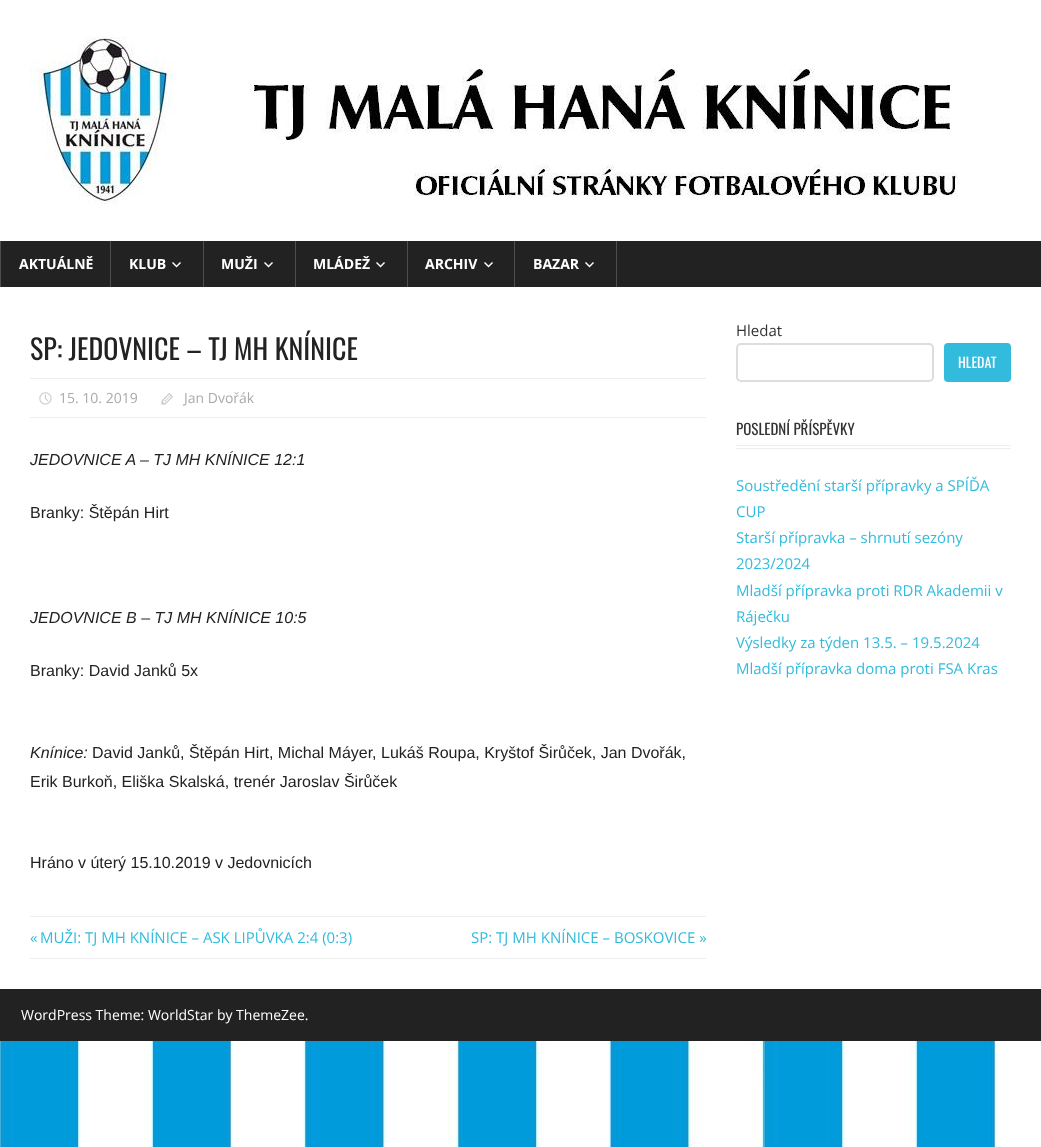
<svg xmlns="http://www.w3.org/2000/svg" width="1041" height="1147">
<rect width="100%" height="100%" fill="#fff"/>
<image x="0" y="1041" width="997" height="106" href="media/1.png"/>
<image x="30" y="36" width="928" height="169" href="media/2.png"/>
<rect x="1" y="241" width="1040" height="46" fill="#222"/>
<rect y="241" width="1" height="46" fill="#4e4e4e"/>
<rect x="110" y="241" width="1" height="46" fill="#4e4e4e"/>
<text x="19" y="269" style="font-family:Open Sans;font-size:14px;font-weight:bold;fill:#fff">AKTUÁLNĚ</text>
<rect x="203" y="241" width="1" height="46" fill="#4e4e4e"/>
<text x="129" y="269" style="font-family:Open Sans;font-size:14px;font-weight:bold;fill:#fff">KLUB</text>
<image x="172" y="262" width="9" height="6" href="media/3.png"/>
<rect x="295" y="241" width="1" height="46" fill="#4e4e4e"/>
<text x="221" y="269" style="font-family:Open Sans;font-size:14px;font-weight:bold;fill:#fff">MUŽI</text>
<image x="264" y="262" width="9" height="6" href="media/3.png"/>
<rect x="407" y="241" width="1" height="46" fill="#4e4e4e"/>
<text x="313" y="269" style="font-family:Open Sans;font-size:14px;font-weight:bold;fill:#fff">MLÁDEŽ</text>
<image x="376" y="262" width="9" height="6" href="media/3.png"/>
<rect x="514" y="241" width="1" height="46" fill="#4e4e4e"/>
<text x="425" y="269" style="font-family:Open Sans;font-size:14px;font-weight:bold;fill:#fff">ARCHIV</text>
<image x="484" y="262" width="9" height="6" href="media/3.png"/>
<rect x="616" y="241" width="1" height="46" fill="#4e4e4e"/>
<text x="533" y="269" style="font-family:Open Sans;font-size:14px;font-weight:bold;fill:#fff">BAZAR</text>
<image x="585" y="262" width="9" height="6" href="media/3.png"/>
<text x="30" y="360" style="font-family:Oswald;font-size:28px;fill:#222">SP: JEDOVNICE – TJ MH KNÍNICE</text>
<rect x="30" y="378" width="676" height="1" fill="#eee"/>
<rect x="30" y="417" width="676" height="1" fill="#eee"/>
<image x="39" y="392" width="13" height="13" href="media/4.png"/>
<text x="59" y="403" style="font-family:Open Sans;font-size:14px;fill:#aaa">15. 10. 2019</text>
<image x="161" y="393" width="12" height="12" href="media/5.png"/>
<text x="184" y="403" style="font-family:Open Sans;font-size:14px;fill:#aaa">Jan Dvořák</text>
<text x="30" y="465" style="font-family:Liberation Sans;font-size:16px;font-style:italic;fill:#222">JEDOVNICE A – TJ MH KNÍNICE 12:1</text>
<text x="30" y="518" style="font-family:Liberation Sans;font-size:16px;fill:#222">Branky: Štěpán Hirt</text>
<text x="30" y="623" style="font-family:Liberation Sans;font-size:16px;font-style:italic;fill:#222">JEDOVNICE B – TJ MH KNÍNICE 10:5</text>
<text x="30" y="676" style="font-family:Liberation Sans;font-size:16px;fill:#222">Branky: David Janků 5x</text>
<text x="30" y="758" style="font-family:Liberation Sans;font-size:16px;font-style:italic;fill:#222">Knínice:</text>
<text x="92" y="758" style="font-family:Liberation Sans;font-size:16px;fill:#222">David Janků, Štěpán Hirt, Michal Máyer, Lukáš Roupa, Kryštof Širůček, Jan Dvořák,</text>
<text x="30" y="787" style="font-family:Liberation Sans;font-size:16px;fill:#222">Erik Burkoň, Eliška Skalská, trenér Jaroslav Širůček</text>
<text x="30" y="868" style="font-family:Liberation Sans;font-size:16px;fill:#222">Hráno v úterý 15.10.2019 v Jedovnicích</text>
<rect x="30" y="916" width="676" height="1" fill="#eee"/>
<rect x="30" y="958" width="676" height="1" fill="#eee"/>
<text x="30" y="943" style="font-family:Open Sans;font-size:15px;fill:#3bd">«</text>
<text x="40" y="943" style="font-family:Open Sans;font-size:15px;fill:#3bd">MUŽI: TJ MH KNÍNICE – ASK LIPŮVKA 2:4 (0:3)</text>
<text x="471" y="943" style="font-family:Open Sans;font-size:15px;fill:#3bd">SP: TJ MH KNÍNICE – BOSKOVICE »</text>
<text x="736" y="336" style="font-family:Open Sans;font-size:15px;fill:#333">Hledat</text>
<rect x="737" y="344" width="196" height="37" rx="4" fill="none" stroke="#ddd" stroke-width="2"/>
<rect x="944" y="343" width="67" height="39" rx="4" fill="#3bd"/>
<text x="958" y="368" style="font-family:Oswald;font-size:14px;fill:#fff">HLEDAT</text>
<rect x="736" y="448" width="275" height="1" fill="#eee"/>
<rect x="736" y="445" width="275" height="1" fill="#eee"/>
<text x="736" y="435" style="font-family:Oswald;font-size:15px;fill:#333">POSLEDNÍ PŘÍSPĚVKY</text>
<text x="736" y="491" style="font-family:Open Sans;font-size:15px;fill:#3bd">Soustředění starší přípravky a SPÍĎA</text>
<text x="736" y="517" style="font-family:Open Sans;font-size:15px;fill:#3bd">CUP</text>
<text x="736" y="543" style="font-family:Open Sans;font-size:15px;fill:#3bd">Starší přípravka – shrnutí sezóny</text>
<text x="736" y="569" style="font-family:Open Sans;font-size:15px;fill:#3bd">2023/2024</text>
<text x="736" y="596" style="font-family:Open Sans;font-size:15px;fill:#3bd">Mladší přípravka proti RDR Akademii v</text>
<text x="736" y="622" style="font-family:Open Sans;font-size:15px;fill:#3bd">Ráječku</text>
<text x="736" y="648" style="font-family:Open Sans;font-size:15px;fill:#3bd">Výsledky za týden 13.5. – 19.5.2024</text>
<text x="736" y="674" style="font-family:Open Sans;font-size:15px;fill:#3bd">Mladší přípravka doma proti FSA Kras</text>
<rect y="989" width="1041" height="52" fill="#222"/>
<text x="21" y="1020" style="font-family:Open Sans;font-size:14px;fill:#fff">WordPress Theme: WorldStar by ThemeZee.</text>
</svg>
